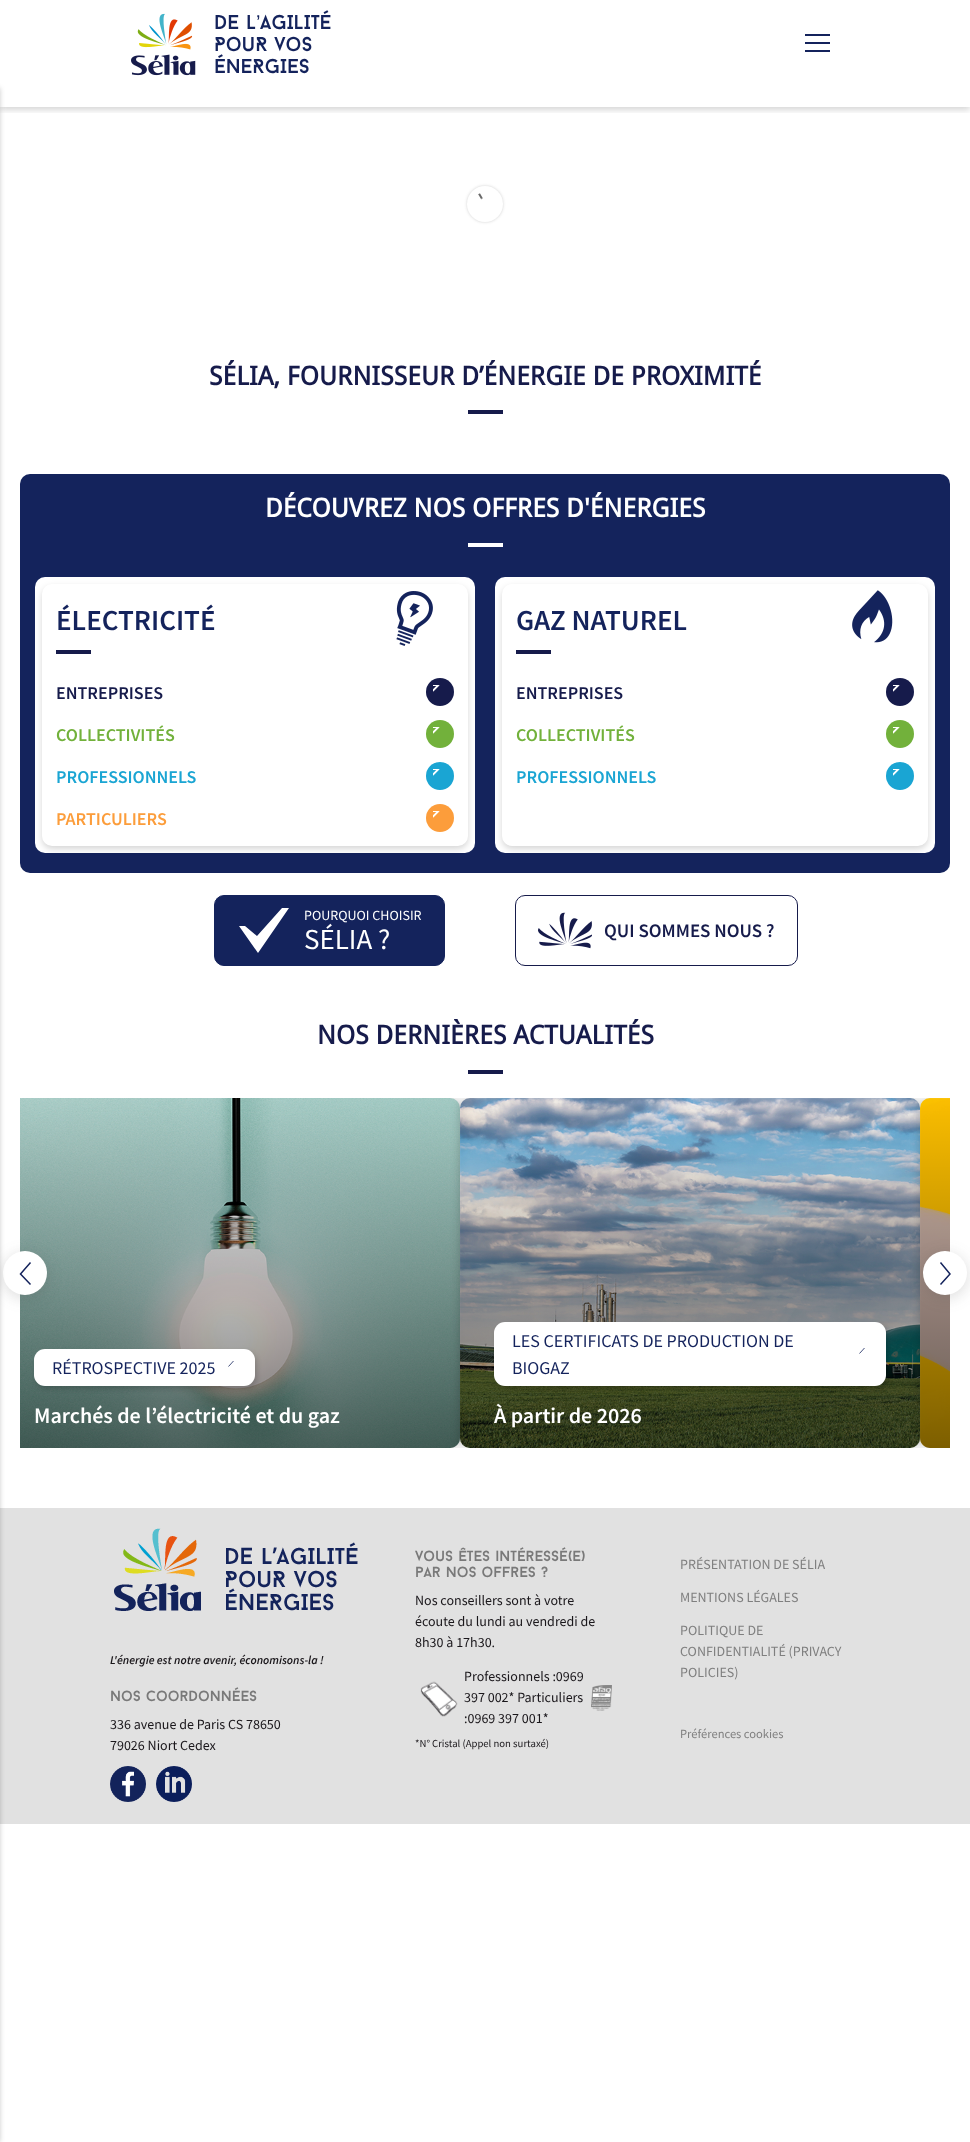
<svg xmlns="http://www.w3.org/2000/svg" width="970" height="2142">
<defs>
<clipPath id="clip1"><rect x="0" y="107" width="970" height="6"/></clipPath>
<clipPath id="clip2"><rect x="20" y="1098" width="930" height="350"/></clipPath>
<linearGradient id="g1" gradientUnits="userSpaceOnUse" x1="230" y1="1098" x2="230" y2="1448"><stop offset="0" stop-color="#000" stop-opacity="0"/><stop offset="1" stop-color="#000" stop-opacity="0.5"/></linearGradient>
<clipPath id="clip3"><rect x="433" y="685" width="14" height="14"/></clipPath>
<clipPath id="clip4"><rect x="433" y="727" width="14" height="14"/></clipPath>
<clipPath id="clip5"><rect x="433" y="769" width="14" height="14"/></clipPath>
<clipPath id="clip6"><rect x="433" y="811" width="14" height="14"/></clipPath>
<clipPath id="clip7"><rect x="893" y="685" width="14" height="14"/></clipPath>
<clipPath id="clip8"><rect x="893" y="727" width="14" height="14"/></clipPath>
<clipPath id="clip9"><rect x="893" y="769" width="14" height="14"/></clipPath>
<linearGradient id="g2" gradientUnits="userSpaceOnUse" x1="690" y1="1098" x2="690" y2="1448"><stop offset="0" stop-color="#000" stop-opacity="0"/><stop offset="1" stop-color="#000" stop-opacity="0.5"/></linearGradient>
<linearGradient id="g3" gradientUnits="userSpaceOnUse" x1="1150" y1="1098" x2="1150" y2="1448"><stop offset="0" stop-color="#000" stop-opacity="0"/><stop offset="1" stop-color="#000" stop-opacity="0.5"/></linearGradient>
<clipPath id="clip10"><rect x="225" y="1361" width="12" height="12"/></clipPath>
<clipPath id="clip11"><rect x="856" y="1348" width="12" height="12"/></clipPath>
</defs>
<rect width="100%" height="100%" fill="#fff"/>
<g clip-path="url(#clip1)">
<rect y="3" width="970" height="107" fill="#00000029" filter="blur(3px)"/>
</g>
<image x="131" y="13" width="65" height="63" href="media/1.png"/>
<text x="214" y="29" style="font-family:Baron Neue;font-size:20px;fill:#14235c">DE L</text>
<text x="256" y="29" style="font-family:Liberation Sans;font-size:20px;fill:#14235c">’</text>
<text x="260" y="29" style="font-family:Baron Neue;font-size:20px;fill:#14235c">AGILITÉ</text>
<text x="214" y="51" style="font-family:Baron Neue;font-size:20px;fill:#14235c">PouR voS</text>
<text x="214" y="73" style="font-family:Baron Neue;font-size:20px;fill:#14235c">ÉNERGIES</text>
<rect x="805" y="34" width="25" height="2" fill="#14235c"/>
<rect x="805" y="42" width="25" height="2" fill="#14235c"/>
<rect x="805" y="50" width="25" height="2" fill="#14235c"/>
<g clip-path="url(#clip2)">
<rect y="1098" width="460" height="350" rx="10" fill="#00000033" filter="blur(5px)"/>
</g>
<image x="20" y="1098" width="440" height="350" href="media/6.png"/>
<path d="M20 1098h430c5.5 0 10 4.5 10 10v330c0 5.5-4.5 10-10 10h-430z" fill="url(#g1)"/>
<rect x="3" y="1254" width="44" height="44" rx="22" fill="#4d4d4d33" filter="blur(7.5px)"/>
<circle cx="25" cy="1273" r="22" fill="#fff"/>
<rect y="1508" width="970" height="316" fill="#e1e1e1"/>
<rect x="-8" y="88" width="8" height="2054" fill="#00000033" filter="blur(2.5px)"/>
<rect x="467" y="186" width="36" height="36" rx="18" fill="#1a1a1a33" filter="blur(1.5px)"/>
<circle cx="485" cy="204" r="18" fill="#fff"/>
<image x="478" y="193" width="5" height="7" href="media/2.png"/>
<text x="209" y="385" style="font-family:Droid Sans;font-size:26px;font-weight:bold;fill:#161b4b">SÉLIA, FOURNISSEUR D’ÉNERGIE DE PROXIMITÉ</text>
<rect x="468" y="410" width="35" height="4" fill="#161b4b"/>
<rect x="20" y="474" width="930" height="399" rx="10" fill="#14235c"/>
<text x="265" y="517" style="font-family:Droid Sans;font-size:26px;font-weight:bold;fill:#fff">DÉCOUVREZ NOS OFFRES D'ÉNERGIES</text>
<rect x="468" y="543" width="35" height="4" fill="#fff"/>
<rect x="35" y="577" width="440" height="276" rx="10" fill="#fff"/>
<rect x="42" y="587" width="426" height="262" rx="10" fill="#00000029" filter="blur(3px)"/>
<rect x="42" y="584" width="426" height="262" rx="10" fill="#fff"/>
<text x="56" y="630" style="font-family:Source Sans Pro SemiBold;font-size:29px;font-weight:600;fill:#14235c">ÉLECTRICITÉ</text>
<image x="396" y="591" width="37" height="55" href="media/3.png"/>
<rect x="56" y="650" width="35" height="4" fill="#161b4b"/>
<text x="56" y="699" style="font-family:Source Sans Pro SemiBold;font-size:18px;font-weight:600;fill:#161b4b">ENTREPRISES</text>
<circle cx="440" cy="692" r="14" fill="#161b4b"/>
<g clip-path="url(#clip3)">
<path d="M433 690.5l5.5-5.5l-5.5-5.5m-5.5 5.5h11" fill="none" stroke="#fff" stroke-width="1.9" stroke-linecap="round" stroke-linejoin="round"/>
</g>
<text x="56" y="741" style="font-family:Source Sans Pro SemiBold;font-size:18px;font-weight:600;fill:#72b13b">COLLECTIVITÉS</text>
<circle cx="440" cy="734" r="14" fill="#72b13b"/>
<g clip-path="url(#clip4)">
<path d="M433 732.5l5.5-5.5l-5.5-5.5m-5.5 5.5h11" fill="none" stroke="#fff" stroke-width="1.9" stroke-linecap="round" stroke-linejoin="round"/>
</g>
<text x="56" y="783" style="font-family:Source Sans Pro SemiBold;font-size:18px;font-weight:600;fill:#1aa5d3">PROFESSIONNELS</text>
<circle cx="440" cy="776" r="14" fill="#1aa5d3"/>
<g clip-path="url(#clip5)">
<path d="M433 774.5l5.5-5.5l-5.5-5.5m-5.5 5.5h11" fill="none" stroke="#fff" stroke-width="1.9" stroke-linecap="round" stroke-linejoin="round"/>
</g>
<text x="56" y="825" style="font-family:Source Sans Pro SemiBold;font-size:18px;font-weight:600;fill:#fc9d3b">PARTICULIERS</text>
<circle cx="440" cy="818" r="14" fill="#fc9d3b"/>
<g clip-path="url(#clip6)">
<path d="M433 816.5l5.5-5.5l-5.5-5.5m-5.5 5.5h11" fill="none" stroke="#fff" stroke-width="1.9" stroke-linecap="round" stroke-linejoin="round"/>
</g>
<rect x="495" y="577" width="440" height="276" rx="10" fill="#fff"/>
<rect x="502" y="587" width="426" height="262" rx="10" fill="#00000029" filter="blur(3px)"/>
<rect x="502" y="584" width="426" height="262" rx="10" fill="#fff"/>
<text x="516" y="630" style="font-family:Source Sans Pro SemiBold;font-size:29px;font-weight:600;fill:#14235c">GAZ NATUREL</text>
<image x="852" y="590" width="41" height="53" href="media/4.png"/>
<rect x="516" y="650" width="35" height="4" fill="#161b4b"/>
<text x="516" y="699" style="font-family:Source Sans Pro SemiBold;font-size:18px;font-weight:600;fill:#161b4b">ENTREPRISES</text>
<circle cx="900" cy="692" r="14" fill="#161b4b"/>
<g clip-path="url(#clip7)">
<path d="M893 690.5l5.5-5.5l-5.5-5.5m-5.5 5.5h11" fill="none" stroke="#fff" stroke-width="1.9" stroke-linecap="round" stroke-linejoin="round"/>
</g>
<text x="516" y="741" style="font-family:Source Sans Pro SemiBold;font-size:18px;font-weight:600;fill:#72b13b">COLLECTIVITÉS</text>
<circle cx="900" cy="734" r="14" fill="#72b13b"/>
<g clip-path="url(#clip8)">
<path d="M893 732.5l5.5-5.5l-5.5-5.5m-5.5 5.5h11" fill="none" stroke="#fff" stroke-width="1.9" stroke-linecap="round" stroke-linejoin="round"/>
</g>
<text x="516" y="783" style="font-family:Source Sans Pro SemiBold;font-size:18px;font-weight:600;fill:#1aa5d3">PROFESSIONNELS</text>
<circle cx="900" cy="776" r="14" fill="#1aa5d3"/>
<g clip-path="url(#clip9)">
<path d="M893 774.5l5.5-5.5l-5.5-5.5m-5.5 5.5h11" fill="none" stroke="#fff" stroke-width="1.9" stroke-linecap="round" stroke-linejoin="round"/>
</g>
<rect x="214.5" y="895.5" width="230" height="70" rx="9.5" fill="#14235c" stroke="#14235c"/>
<path d="M282 908l-25 28l-12-10h-6l19 27l31-45z" fill="#fff"/>
<text x="304" y="920" style="font-family:Source Sans Pro;font-size:14px;fill:#fff">POURQUOI CHOISIR</text>
<text x="304" y="949" style="font-family:Source Sans Pro;font-size:29px;fill:#fff">SÉLIA ?</text>
<rect x="515.5" y="895.5" width="282" height="70" rx="9.5" fill="none" stroke="#161b4b"/>
<image x="538" y="912" width="54" height="37" href="media/5.png"/>
<text x="604" y="937" style="font-family:Source Sans Pro SemiBold;font-size:19px;font-weight:600;fill:#161b4b">QUI SOMMES NOUS ?</text>
<text x="317" y="1044" style="font-family:Droid Sans;font-size:26px;font-weight:bold;fill:#161b4b">NOS DERNIÈRES ACTUALITÉS</text>
<rect x="468" y="1070" width="35" height="4" fill="#161b4b"/>
<path d="M30.5 1262.5l-10 11.5l10 10.5" fill="none" stroke="#14235c" stroke-width="1.5"/>
<g clip-path="url(#clip2)">
<rect x="460" y="1098" width="460" height="350" rx="10" fill="#00000033" filter="blur(5px)"/>
</g>
<image x="460" y="1098" width="460" height="350" href="media/7.png"/>
<rect x="460" y="1098" width="460" height="350" rx="10" fill="url(#g2)"/>
<g clip-path="url(#clip2)">
<rect x="920" y="1098" width="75" height="350" rx="10" fill="#00000033" filter="blur(5px)"/>
</g>
<image x="920" y="1098" width="30" height="350" href="media/8.png"/>
<path d="M930 1098h20v350h-20c-5.5 0-10-4.5-10-10v-330c0-5.5 4.5-10 10-10z" fill="url(#g3)"/>
<rect x="923" y="1254" width="44" height="44" rx="22" fill="#4d4d4d33" filter="blur(7.5px)"/>
<circle cx="945" cy="1273" r="22" fill="#fff"/>
<path d="M940.5 1262.5l9.5 11.5l-9.5 10.5" fill="none" stroke="#14235c" stroke-width="1.5"/>
<rect x="36" y="1352" width="221" height="37" rx="11" fill="#00000029" filter="blur(2.5px)"/>
<rect x="34" y="1349" width="221" height="37" rx="11" fill="#fff"/>
<text x="52" y="1374" style="font-family:Source Sans Pro;font-size:18px;fill:#14235c">RÉTROSPECTIVE 2025</text>
<g clip-path="url(#clip10)">
<path d="M228.5 1355.5l5 5.5l-5 5.5" fill="none" stroke="#14235c" stroke-width="0.8"/>
</g>
<text x="34" y="1423" style="font-family:Source Sans Pro SemiBold;font-size:22px;font-weight:600;fill:#fff">Marchés de l’électricité et du gaz</text>
<rect x="496" y="1325" width="392" height="64" rx="11" fill="#00000029" filter="blur(2.5px)"/>
<rect x="494" y="1322" width="392" height="64" rx="11" fill="#fff"/>
<text x="512" y="1347" style="font-family:Source Sans Pro;font-size:18px;fill:#14235c">LES CERTIFICATS DE PRODUCTION DE</text>
<text x="512" y="1374" style="font-family:Source Sans Pro;font-size:18px;fill:#14235c">BIOGAZ</text>
<g clip-path="url(#clip11)">
<path d="M859.5 1342.5l5 5.5l-5 5.5" fill="none" stroke="#14235c" stroke-width="0.8"/>
</g>
<text x="494" y="1423" style="font-family:Source Sans Pro SemiBold;font-size:22px;font-weight:600;fill:#fff">À partir de 2026</text>
<text x="110" y="1701" style="font-family:Baron Neue;font-size:14.75px;fill:#797979">nos coordonnées</text>
<text x="110" y="1729" style="font-family:Source Sans Pro;font-size:14px;fill:#1a171b">336 avenue de Paris CS 78650</text>
<text x="110" y="1750" style="font-family:Source Sans Pro;font-size:14px;fill:#1a171b">79026 Niort Cedex</text>
<image x="110" y="1766" width="36" height="36" href="media/9.png"/>
<image x="156" y="1766" width="36" height="36" href="media/10.png"/>
<text x="415" y="1561" style="font-family:Baron Neue;font-size:14.75px;fill:#797979">vous êtes intéressé(e)</text>
<text x="415" y="1577" style="font-family:Baron Neue;font-size:14.75px;fill:#797979">par nos offres ?</text>
<text x="415" y="1605" style="font-family:Source Sans Pro;font-size:14px;fill:#1a171b">Nos conseillers sont à votre</text>
<text x="415" y="1626" style="font-family:Source Sans Pro;font-size:14px;fill:#1a171b">écoute du lundi au vendredi de</text>
<text x="415" y="1647" style="font-family:Source Sans Pro;font-size:14px;fill:#1a171b">8h30 à 17h30.</text>
<image x="420" y="1681" width="38" height="36" href="media/11.png"/>
<text x="464" y="1681" style="font-family:Source Sans Pro;font-size:14px;fill:#1a171b">Professionnels :0969</text>
<text x="464" y="1702" style="font-family:Source Sans Pro;font-size:14px;fill:#1a171b">397 002* Particuliers</text>
<text x="464" y="1723" style="font-family:Source Sans Pro;font-size:14px;fill:#1a171b">:0969 397 001*</text>
<image x="591" y="1685" width="21" height="26" href="media/12.png"/>
<text x="415" y="1747" style="font-family:Source Sans Pro;font-size:10.7px;fill:#1a171b">*N° Cristal (Appel non surtaxé)</text>
<text x="680" y="1569" style="font-family:Source Sans Pro;font-size:14px;fill:#7f7f7f">PRÉSENTATION DE SÉLIA</text>
<text x="680" y="1602" style="font-family:Source Sans Pro;font-size:14px;fill:#7f7f7f">MENTIONS LÉGALES</text>
<text x="680" y="1635" style="font-family:Source Sans Pro;font-size:14px;fill:#7f7f7f">POLITIQUE DE</text>
<text x="680" y="1656" style="font-family:Source Sans Pro;font-size:14px;fill:#7f7f7f">CONFIDENTIALITÉ (PRIVACY</text>
<text x="680" y="1677" style="font-family:Source Sans Pro;font-size:14px;fill:#7f7f7f">POLICIES)</text>
<text x="680" y="1738" style="font-family:Source Sans Pro;font-size:12.5px;fill:#7f7f7f">Préférences cookies</text>
<image x="114" y="1528" width="244" height="83" href="media/13.png"/>
<text x="110" y="1664" style="font-family:Source Sans Pro SemiBold;font-size:11.9px;font-weight:600;font-style:italic;fill:#1a171b">L'énergie est notre avenir, économisons-la !</text>
</svg>
